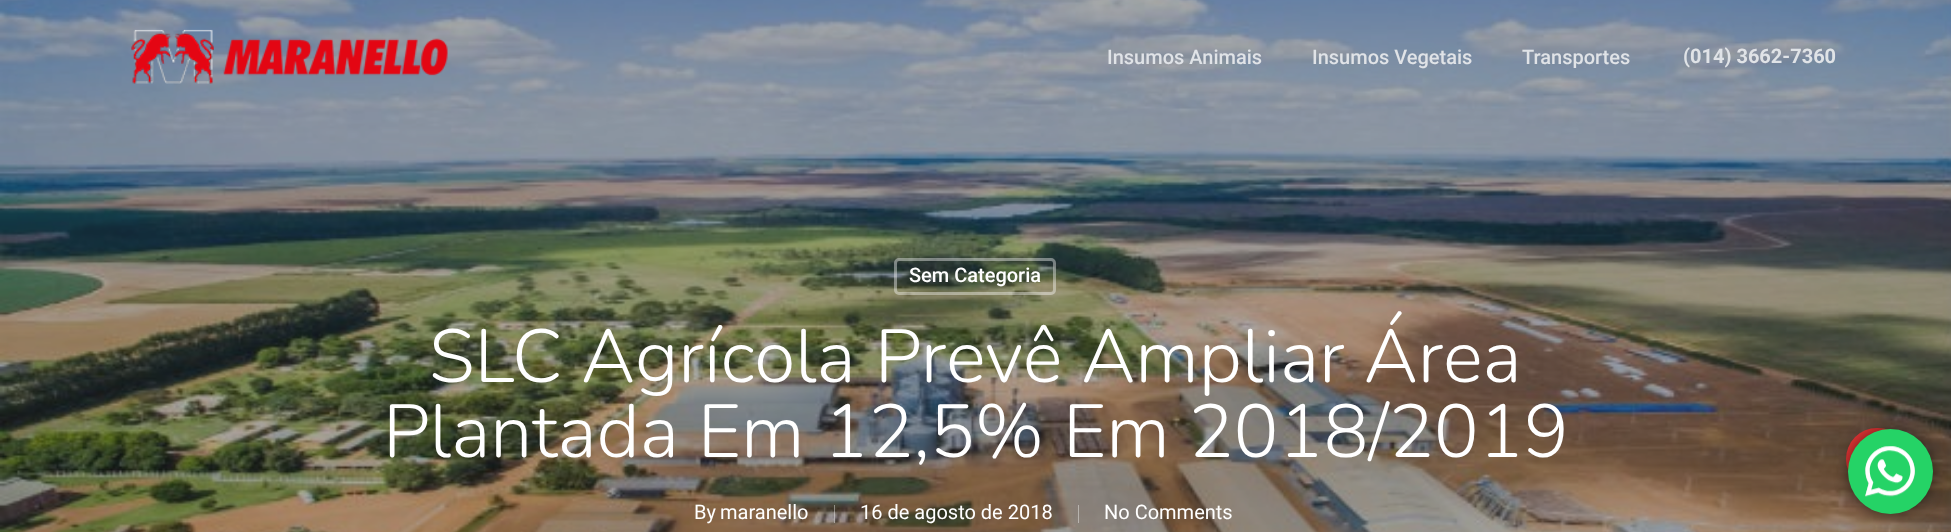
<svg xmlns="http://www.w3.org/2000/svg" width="1951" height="532">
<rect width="100%" height="100%" fill="#fff"/>
<image x="0" y="0" width="1951" height="532" href="media/2.png"/>
<image x="131" y="29" width="317" height="55" href="media/1.png"/>
<text x="1107" y="64" style="font-family:Roboto;font-size:20px;font-weight:500;fill:#e0e3e7">Insumos Animais</text>
<text x="1312" y="64" style="font-family:Roboto;font-size:20px;font-weight:500;fill:#e0e3e7">Insumos Vegetais</text>
<text x="1522" y="64" style="font-family:Roboto;font-size:20px;font-weight:500;fill:#e0e3e7">Transportes</text>
<text x="1683" y="63" style="font-family:Roboto;font-size:20px;font-weight:bold;fill:#e0e3e7">(014) 3662-7360</text>
<rect x="895.5" y="259.5" width="159" height="34" rx="3.5" fill="none" stroke="#ffffff66" stroke-width="3"/>
<text x="909" y="282" style="font-family:Roboto;font-size:20px;font-weight:500;fill:#fff">Sem Categoria</text>
<text x="429" y="382" style="font-family:Nunito;font-size:75px;font-weight:300;fill:#fff">SLC Agrícola Prevê Ampliar Área</text>
<text x="383" y="457" style="font-family:Nunito;font-size:75px;font-weight:300;fill:#fff">Plantada Em 12,5% Em 2018/2019</text>
<text x="694" y="519" style="font-family:Roboto;font-size:20px;fill:#fff">By</text>
<text x="720" y="519" style="font-family:Roboto;font-size:20px;fill:#fff">maranello</text>
<rect x="834" y="505" width="1" height="18" fill="#ffffff66"/>
<text x="860" y="519" style="font-family:Roboto;font-size:20px;fill:#fff">16 de agosto de 2018</text>
<rect x="1078" y="505" width="1" height="18" fill="#ffffff66"/>
<text x="1104" y="519" style="font-family:Roboto;font-size:20px;fill:#fff">No Comments</text>
<rect x="1846" y="428" width="63" height="62" rx="31" fill="#d33"/>
<rect x="1848" y="429" width="85" height="85" rx="42.5" fill="#00000080" filter="blur(7px)"/>
<circle cx="1890.5" cy="471.5" r="42.5" fill="#25d366"/>
<image x="1865" y="446" width="50" height="51" href="media/3.png"/>
</svg>
